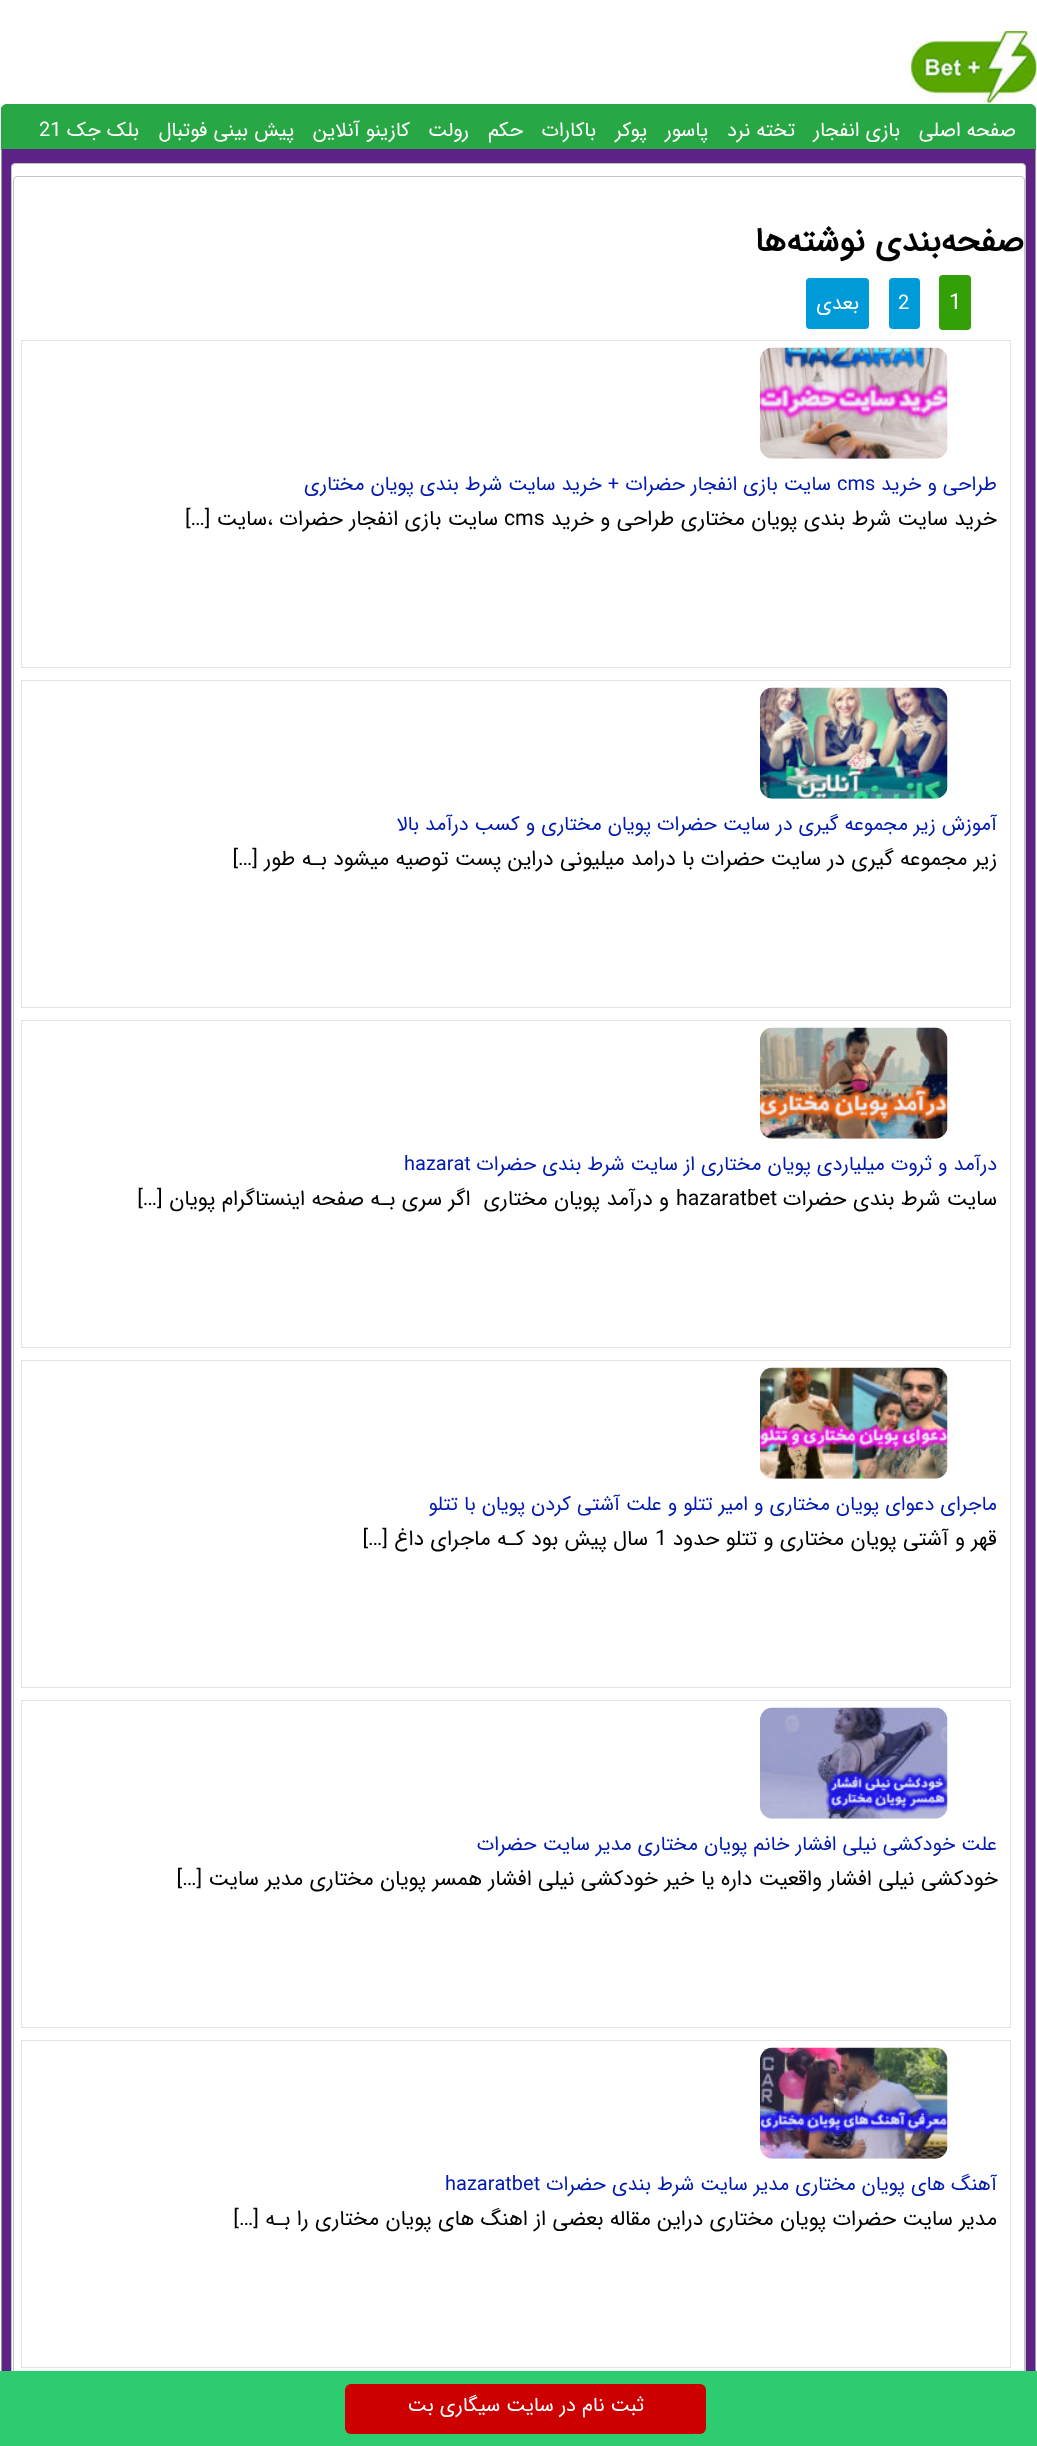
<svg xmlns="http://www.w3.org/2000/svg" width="1037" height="2446">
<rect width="100%" height="100%" fill="#fff"/>
<image x="911" y="31" width="126" height="72" href="media/1.png"/>
<path d="M7 104h1023c3.5 0 6 2.5 6 6v40h-1035v-40c0-3.5 2.5-6 6-6z" fill="#28a745"/>
<path d="M8 104c-2 0-4 1-5 2h1c1 0 2-1 4-1h1022c2 0 3 1 4 1c-1-1-2-2-4-2z" fill="#28a745"/>
<path d="M1036 150v-40c0-2-1-3-2-4c0 1 1 2 1 4v39z" fill="#28a745"/>
<path d="M1 150h1035l-1-1h-1033z" fill="#5e2387"/>
<path d="M1 150l1-1v-39c0-2 1-3 2-4h-1l-2 2z" fill="#28a745"/>
<text x="1016" y="136" style="font-family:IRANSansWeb;font-size:20px;direction:rtl;fill:#fff">صفحه اصلی</text>
<text x="900" y="136" style="font-family:IRANSansWeb;font-size:20px;direction:rtl;fill:#fff">بازی انفجار</text>
<text x="795" y="136" style="font-family:IRANSansWeb;font-size:20px;direction:rtl;fill:#fff">تخته نرد</text>
<text x="708" y="136" style="font-family:IRANSansWeb;font-size:20px;direction:rtl;fill:#fff">پاسور</text>
<text x="647" y="136" style="font-family:IRANSansWeb;font-size:20px;direction:rtl;fill:#fff">پوکر</text>
<text x="596" y="136" style="font-family:IRANSansWeb;font-size:20px;direction:rtl;fill:#fff">باکارات</text>
<text x="523" y="136" style="font-family:IRANSansWeb;font-size:20px;direction:rtl;fill:#fff">حکم</text>
<text x="469" y="136" style="font-family:IRANSansWeb;font-size:20px;direction:rtl;fill:#fff">رولت</text>
<text x="410" y="136" style="font-family:IRANSansWeb;font-size:20px;direction:rtl;fill:#fff">کازینو آنلاین</text>
<text x="294" y="136" style="font-family:IRANSansWeb;font-size:20px;direction:rtl;fill:#fff">پیش بینی فوتبال</text>
<text x="139" y="136" style="font-family:IRANSansWeb;font-size:20px;direction:rtl;fill:#fff">بلک جک</text>
<text x="39" y="136" style="font-family:IRANSansWeb;font-size:20px;fill:#fff">21</text>
<rect x="2" y="150" width="1033" height="2221" fill="#5e2387"/>
<path d="M1036 150v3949l-1-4v-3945z" fill="#999"/>
<path d="M1 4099v-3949h1v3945z" fill="#999"/>
<rect x="11.5" y="163.5" width="1014" height="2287" rx="3.5" fill="#fff" stroke="#c3c3c3"/>
<rect x="13.5" y="176.5" width="1011" height="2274" rx="3.5" fill="none" stroke="#c3c3c3"/>
<text x="1024" y="251" style="font-family:IRANSansWeb;font-size:33.75px;font-weight:bold;direction:rtl;fill:#000">صفحه‌بندی نوشته‌ها</text>
<rect x="939" y="275" width="32" height="55" rx="4" fill="#33a008"/>
<text x="949" y="309" style="font-family:IRANSansWeb;font-size:22px;fill:#fff">1</text>
<rect x="889" y="278" width="31" height="51" rx="4" fill="#009ad9"/>
<text x="898" y="309" style="font-family:IRANSansWeb;font-size:20px;fill:#fff">2</text>
<rect x="806" y="278" width="63" height="51" rx="4" fill="#009ad9"/>
<text x="859" y="309" style="font-family:IRANSansWeb;font-size:20px;direction:rtl;fill:#fff">بعدی</text>
<rect x="21.5" y="340.5" width="989" height="327" fill="none" stroke="#e4e4e4"/>
<image x="760" y="347" width="188" height="112" href="media/2.png"/>
<text x="997" y="490" style="font-family:IRANSansWeb;font-size:20px;direction:rtl;fill:#001aaf">طراحی و خرید</text>
<text x="837" y="490" style="font-family:IRANSansWeb;font-size:20px;fill:#001aaf">cms</text>
<text x="831" y="490" style="font-family:IRANSansWeb;font-size:20px;direction:rtl;fill:#001aaf">سایت بازی انفجار حضرات + خرید سایت شرط بندی پویان مختاری</text>
<text x="997" y="525" style="font-family:IRANSansWeb;font-size:21.25px;direction:rtl;fill:#000">خرید سایت شرط بندی پویان مختاری طراحی و خرید</text>
<text x="504" y="525" style="font-family:IRANSansWeb;font-size:21.25px;fill:#000">cms</text>
<text x="498" y="525" style="font-family:IRANSansWeb;font-size:21.25px;direction:rtl;fill:#000">سایت بازی انفجار حضرات ،سایت […]</text>
<rect x="21.5" y="680.5" width="989" height="327" fill="none" stroke="#e4e4e4"/>
<image x="760" y="687" width="188" height="112" href="media/3.png"/>
<text x="997" y="830" style="font-family:IRANSansWeb;font-size:20px;direction:rtl;fill:#001aaf">آموزش زیر مجموعه گیری در سایت حضرات پویان مختاری و کسب درآمد بالا</text>
<text x="997" y="865" style="font-family:IRANSansWeb;font-size:21.25px;direction:rtl;fill:#000">زیر مجموعه گیری در سایت حضرات با درامد میلیونی دراین پست توصیه میشود بـه طور […]</text>
<rect x="21.5" y="1020.5" width="989" height="327" fill="none" stroke="#e4e4e4"/>
<image x="760" y="1027" width="188" height="112" href="media/4.png"/>
<text x="997" y="1170" style="font-family:IRANSansWeb;font-size:20px;direction:rtl;fill:#001aaf">درآمد و ثروت میلیاردی پویان مختاری از سایت شرط بندی حضرات</text>
<text x="404" y="1170" style="font-family:IRANSansWeb;font-size:20px;fill:#001aaf">hazarat</text>
<text x="997" y="1205" style="font-family:IRANSansWeb;font-size:21.25px;direction:rtl;fill:#000">سایت شرط بندی حضرات</text>
<text x="676" y="1205" style="font-family:IRANSansWeb;font-size:21.25px;fill:#000">hazaratbet</text>
<text x="669" y="1205" style="font-family:IRANSansWeb;font-size:21.25px;direction:rtl;fill:#000" xml:space="preserve">و درآمد پویان مختاری  اگر سری بـه صفحه اینستاگرام پویان […]</text>
<rect x="21.5" y="1360.5" width="989" height="327" fill="none" stroke="#e4e4e4"/>
<image x="760" y="1367" width="188" height="112" href="media/5.png"/>
<text x="997" y="1510" style="font-family:IRANSansWeb;font-size:20px;direction:rtl;fill:#001aaf">ماجرای دعوای پویان مختاری و امیر تتلو و علت آشتی کردن پویان با تتلو</text>
<text x="997" y="1545" style="font-family:IRANSansWeb;font-size:21.25px;direction:rtl;fill:#000">قهر و آشتی پویان مختاری و تتلو حدود</text>
<text x="655" y="1545" style="font-family:IRANSansWeb;font-size:21.25px;fill:#000">1</text>
<text x="648" y="1545" style="font-family:IRANSansWeb;font-size:21.25px;direction:rtl;fill:#000">سال پیش بود کـه ماجرای داغ […]</text>
<rect x="21.5" y="1700.5" width="989" height="327" fill="none" stroke="#e4e4e4"/>
<image x="760" y="1707" width="188" height="112" href="media/6.png"/>
<text x="997" y="1850" style="font-family:IRANSansWeb;font-size:20px;direction:rtl;fill:#001aaf">علت خودکشی نیلی افشار خانم پویان مختاری مدیر سایت حضرات</text>
<text x="998" y="1885" style="font-family:IRANSansWeb;font-size:21.25px;direction:rtl;fill:#000">خودکشی نیلی افشار واقعیت داره یا خیر خودکشی نیلی افشار همسر پویان مختاری مدیر سایت […]</text>
<rect x="21.5" y="2040.5" width="989" height="327" fill="none" stroke="#e4e4e4"/>
<image x="760" y="2047" width="188" height="112" href="media/7.png"/>
<text x="997" y="2190" style="font-family:IRANSansWeb;font-size:20px;direction:rtl;fill:#001aaf">آهنگ های پویان مختاری مدیر سایت شرط بندی حضرات</text>
<text x="445" y="2190" style="font-family:IRANSansWeb;font-size:20px;fill:#001aaf">hazaratbet</text>
<text x="997" y="2225" style="font-family:IRANSansWeb;font-size:21.25px;direction:rtl;fill:#000">مدیر سایت حضرات پویان مختاری دراین مقاله بعضی از اهنگ های‌ پویان مختاری را بـه […]</text>
<rect y="2371" width="1037" height="75" fill="#2ecc71"/>
<rect x="345" y="2384" width="361" height="50" rx="6" fill="#c00"/>
<text x="644" y="2411" style="font-family:IRANSansWeb;font-size:20px;direction:rtl;fill:#fff">ثبت نام در سایت سیگاری بت</text>
</svg>
